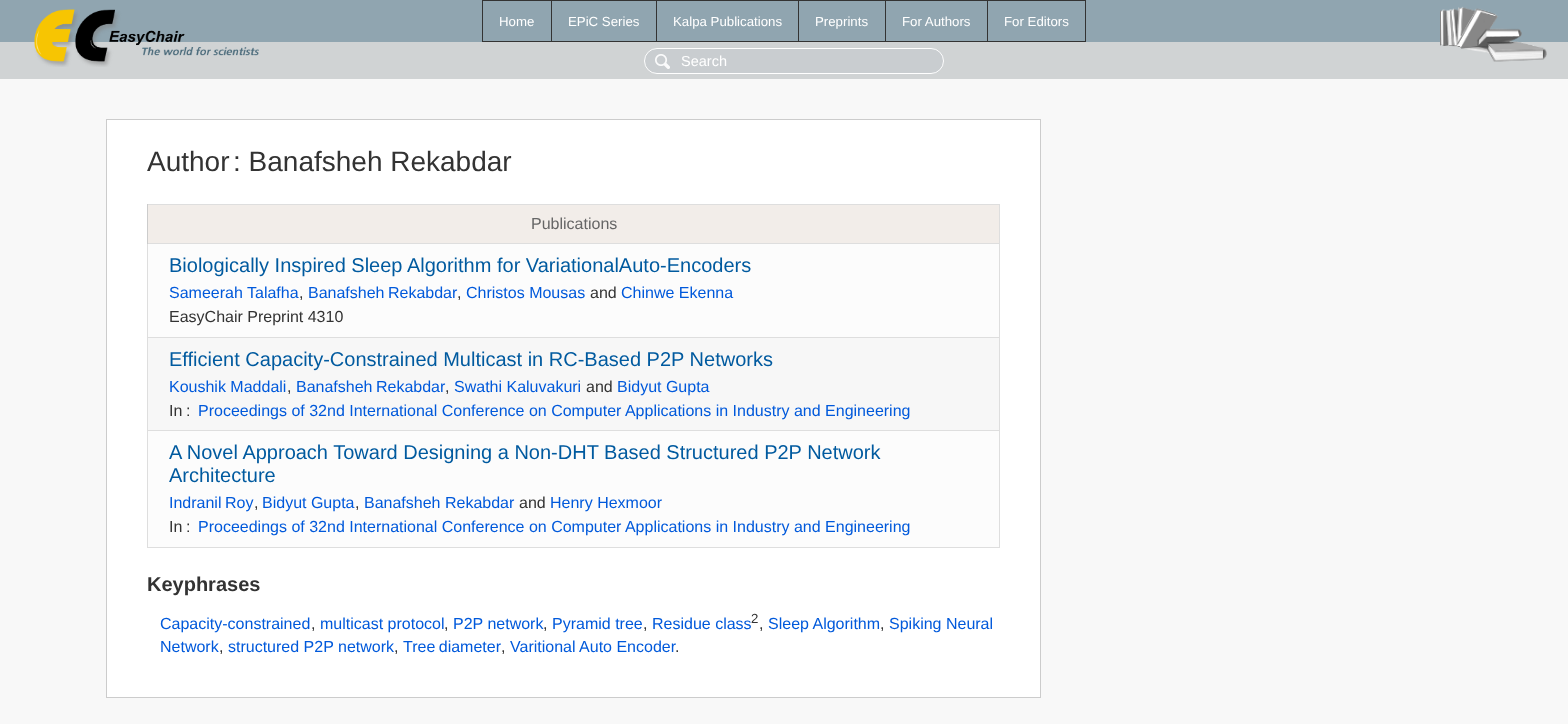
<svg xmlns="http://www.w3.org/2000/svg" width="1568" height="724">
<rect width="100%" height="100%" fill="#90a5b0"/>
<rect y="43" width="1567" height="35" fill="#d0d3d4"/>
<rect y="42" width="1568" height="1" fill="#d0d3d4"/>
<image x="34" y="9" width="225" height="58" href="media/1.png"/>
<rect x="987" width="99" height="1" fill="#333"/>
<rect x="1085" width="1" height="42" fill="#333"/>
<rect x="987" y="41" width="99" height="1" fill="#333"/>
<rect x="987" width="1" height="42" fill="#333"/>
<rect x="885" width="103" height="1" fill="#333"/>
<rect x="885" y="41" width="103" height="1" fill="#333"/>
<rect x="885" width="1" height="42" fill="#333"/>
<rect x="798" width="88" height="1" fill="#333"/>
<rect x="798" y="41" width="88" height="1" fill="#333"/>
<rect x="798" width="1" height="42" fill="#333"/>
<rect x="656" width="143" height="1" fill="#333"/>
<rect x="656" y="41" width="143" height="1" fill="#333"/>
<rect x="656" width="1" height="42" fill="#333"/>
<rect x="551" width="106" height="1" fill="#333"/>
<rect x="551" y="41" width="106" height="1" fill="#333"/>
<rect x="551" width="1" height="42" fill="#333"/>
<rect x="482" width="70" height="1" fill="#333"/>
<rect x="482" y="41" width="70" height="1" fill="#333"/>
<rect x="482" width="1" height="42" fill="#333"/>
<text x="499" y="26" style="font-family:Liberation Sans;font-size:13.25px;fill:#fff">Home</text>
<text x="568" y="26" style="font-family:Liberation Sans;font-size:13.25px;fill:#fff">EPiC Series</text>
<text x="673" y="26" style="font-family:Liberation Sans;font-size:13.25px;fill:#fff">Kalpa Publications</text>
<text x="815" y="26" style="font-family:Liberation Sans;font-size:13.25px;fill:#fff">Preprints</text>
<text x="902" y="26" style="font-family:Liberation Sans;font-size:13.25px;fill:#fff">For Authors</text>
<text x="1004" y="26" style="font-family:Liberation Sans;font-size:13.25px;fill:#fff">For Editors</text>
<image x="1440" y="6" width="107" height="56" href="media/2.png"/>
<rect x="1567" y="42" width="1" height="37" fill="#d0d3d4"/>
<rect y="78" width="1568" height="1" fill="#d0d3d4"/>
<rect x="644" y="48" width="300" height="26" rx="13" fill="#c9cdd0"/>
<image x="655" y="54" width="15" height="15" href="media/3.png"/>
<rect x="644.5" y="48.5" width="299" height="25" rx="12.5" fill="none" stroke="#fff"/>
<text x="681" y="66" style="font-family:Liberation Sans;font-size:14.5px;fill:#fff">Search</text>
<rect y="79" width="1568" height="645" fill="#f8f8f8"/>
<rect x="106.5" y="119.5" width="934" height="578" fill="#fff" stroke="#ccc"/>
<text x="147" y="171" style="font-family:Liberation Sans;font-size:28px;fill:#333">Author</text>
<text x="233" y="171" style="font-family:Liberation Sans;font-size:28px;fill:#333">: Banafsheh Rekabdar</text>
<rect x="147" y="204" width="853" height="1" fill="#dedede"/>
<rect x="999" y="204" width="1" height="344" fill="#dedede"/>
<rect x="147" y="547" width="853" height="1" fill="#dedede"/>
<rect x="147" y="244" width="1" height="304" fill="#dedede"/>
<rect x="148" y="205" width="851" height="38" fill="#f2ede9"/>
<rect x="147" y="243" width="853" height="1" fill="#dedede"/>
<rect x="147" y="204" width="1" height="40" fill="#ccc"/>
<text x="531" y="229" style="font-family:Liberation Sans;font-size:16px;fill:#666">Publications</text>
<rect x="148" y="244" width="851" height="93" fill="#fcfcfc"/>
<rect x="147" y="337" width="853" height="1" fill="#dedede"/>
<text x="169" y="272" style="font-family:Liberation Sans;font-size:20px;fill:#005a9f">Biologically Inspired Sleep Algorithm for VariationalAuto-Encoders</text>
<text x="169" y="298" style="font-family:Liberation Sans;font-size:16px;fill:#0059db">Sameerah Talafha</text>
<text x="299" y="298" style="font-family:Liberation Sans;font-size:16px;fill:#333">,</text>
<text x="308" y="298" word-spacing="-1" style="font-family:Liberation Sans;font-size:16px;fill:#0059db">Banafsheh Rekabdar</text>
<text x="457" y="298" style="font-family:Liberation Sans;font-size:16px;fill:#333">,</text>
<text x="466" y="298" style="font-family:Liberation Sans;font-size:16px;fill:#0059db">Christos Mousas</text>
<text x="590" y="298" style="font-family:Liberation Sans;font-size:16px;fill:#333">and</text>
<text x="621" y="298" style="font-family:Liberation Sans;font-size:16px;fill:#0059db">Chinwe Ekenna</text>
<text x="169" y="322" style="font-family:Liberation Sans;font-size:16px;fill:#333">EasyChair Preprint 4310</text>
<rect x="148" y="338" width="851" height="92" fill="#f7f7f7"/>
<rect x="147" y="430" width="853" height="1" fill="#dedede"/>
<text x="169" y="366" style="font-family:Liberation Sans;font-size:20px;fill:#005a9f">Efficient Capacity-Constrained Multicast in RC-Based P2P Networks</text>
<text x="169" y="392" style="font-family:Liberation Sans;font-size:16px;fill:#0059db">Koushik Maddali</text>
<text x="287" y="392" style="font-family:Liberation Sans;font-size:16px;fill:#333">,</text>
<text x="296" y="392" word-spacing="-1" style="font-family:Liberation Sans;font-size:16px;fill:#0059db">Banafsheh Rekabdar</text>
<text x="445" y="392" style="font-family:Liberation Sans;font-size:16px;fill:#333">,</text>
<text x="454" y="392" style="font-family:Liberation Sans;font-size:16px;fill:#0059db">Swathi Kaluvakuri</text>
<text x="586" y="392" style="font-family:Liberation Sans;font-size:16px;fill:#333">and</text>
<text x="617" y="392" style="font-family:Liberation Sans;font-size:16px;fill:#0059db">Bidyut Gupta</text>
<text x="169" y="416" style="font-family:Liberation Sans;font-size:16px;fill:#333">In</text>
<text x="186" y="416" style="font-family:Liberation Sans;font-size:16px;fill:#333">:</text>
<text x="198" y="416" style="font-family:Liberation Sans;font-size:16px;fill:#0059db">Proceedings of 32nd International Conference on Computer Applications in Industry and Engineering</text>
<rect x="148" y="431" width="851" height="116" fill="#fcfcfc"/>
<text x="169" y="459" style="font-family:Liberation Sans;font-size:20px;fill:#005a9f">A Novel Approach Toward Designing a Non-DHT Based Structured P2P Network</text>
<text x="169" y="482" style="font-family:Liberation Sans;font-size:20px;fill:#005a9f">Architecture</text>
<text x="169" y="508" word-spacing="-1" style="font-family:Liberation Sans;font-size:16px;fill:#0059db">Indranil Roy</text>
<text x="254" y="508" style="font-family:Liberation Sans;font-size:16px;fill:#333">,</text>
<text x="262" y="508" style="font-family:Liberation Sans;font-size:16px;fill:#0059db">Bidyut Gupta</text>
<text x="355" y="508" style="font-family:Liberation Sans;font-size:16px;fill:#333">,</text>
<text x="364" y="508" style="font-family:Liberation Sans;font-size:16px;fill:#0059db">Banafsheh Rekabdar</text>
<text x="519" y="508" style="font-family:Liberation Sans;font-size:16px;fill:#333">and</text>
<text x="550" y="508" style="font-family:Liberation Sans;font-size:16px;fill:#0059db">Henry Hexmoor</text>
<text x="169" y="532" style="font-family:Liberation Sans;font-size:16px;fill:#333">In</text>
<text x="186" y="532" style="font-family:Liberation Sans;font-size:16px;fill:#333">:</text>
<text x="198" y="532" style="font-family:Liberation Sans;font-size:16px;fill:#0059db">Proceedings of 32nd International Conference on Computer Applications in Industry and Engineering</text>
<text x="147" y="591" style="font-family:Liberation Sans;font-size:20px;font-weight:bold;fill:#333">Keyphrases</text>
<text x="160" y="629" style="font-family:Liberation Sans;font-size:16px;fill:#0059db">Capacity-constrained</text>
<text x="311" y="629" style="font-family:Liberation Sans;font-size:16px;fill:#333">,</text>
<text x="320" y="629" style="font-family:Liberation Sans;font-size:16px;fill:#0059db">multicast protocol</text>
<text x="444" y="629" style="font-family:Liberation Sans;font-size:16px;fill:#333">,</text>
<text x="453" y="629" style="font-family:Liberation Sans;font-size:16px;fill:#0059db">P2P network</text>
<text x="543" y="629" style="font-family:Liberation Sans;font-size:16px;fill:#333">,</text>
<text x="552" y="629" style="font-family:Liberation Sans;font-size:16px;fill:#0059db">Pyramid tree</text>
<text x="643" y="629" style="font-family:Liberation Sans;font-size:16px;fill:#333">,</text>
<text x="652" y="629" style="font-family:Liberation Sans;font-size:16px;fill:#0059db">Residue class</text>
<text x="751" y="623" style="font-family:Liberation Sans;font-size:13.25px;fill:#333">2</text>
<text x="759" y="629" style="font-family:Liberation Sans;font-size:16px;fill:#333">,</text>
<text x="768" y="629" style="font-family:Liberation Sans;font-size:16px;fill:#0059db">Sleep Algorithm</text>
<text x="880" y="629" style="font-family:Liberation Sans;font-size:16px;fill:#333">,</text>
<text x="889" y="629" style="font-family:Liberation Sans;font-size:16px;fill:#0059db">Spiking Neural</text>
<text x="160" y="652" style="font-family:Liberation Sans;font-size:16px;fill:#0059db">Network</text>
<text x="219" y="652" style="font-family:Liberation Sans;font-size:16px;fill:#333">,</text>
<text x="228" y="652" style="font-family:Liberation Sans;font-size:16px;fill:#0059db">structured P2P network</text>
<text x="394" y="652" style="font-family:Liberation Sans;font-size:16px;fill:#333">,</text>
<text x="403" y="652" word-spacing="-1" style="font-family:Liberation Sans;font-size:16px;fill:#0059db">Tree diameter</text>
<text x="501" y="652" style="font-family:Liberation Sans;font-size:16px;fill:#333">,</text>
<text x="510" y="652" style="font-family:Liberation Sans;font-size:16px;fill:#0059db">Varitional Auto Encoder</text>
<text x="675" y="652" style="font-family:Liberation Sans;font-size:16px;fill:#333">.</text>
</svg>
